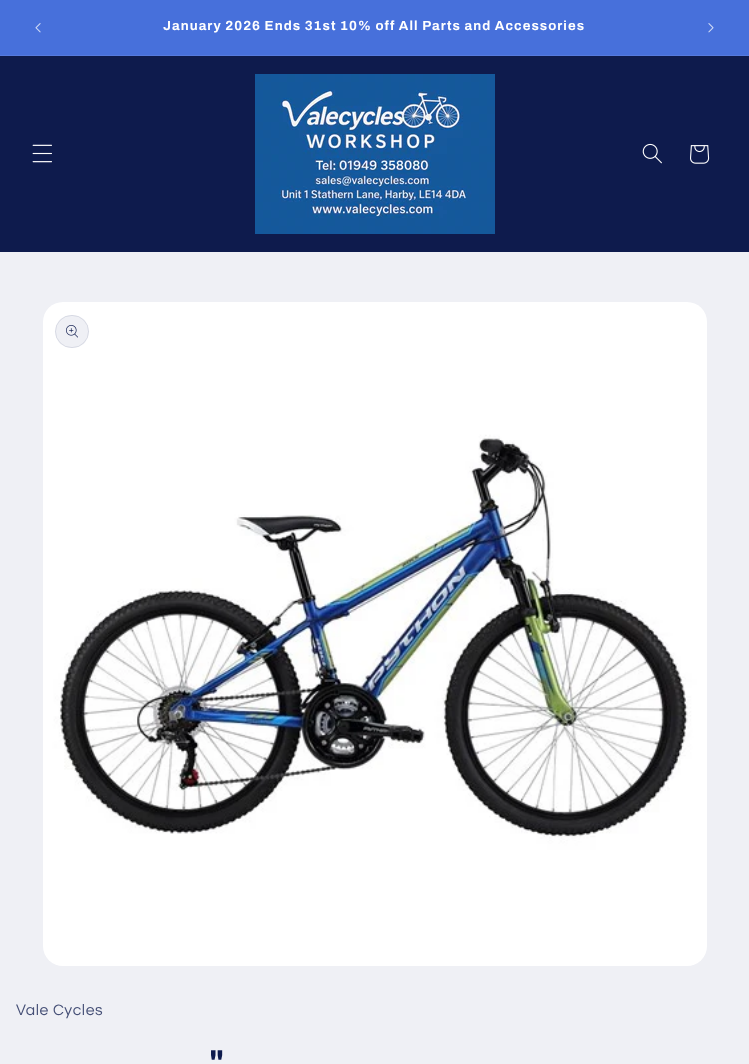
<svg xmlns="http://www.w3.org/2000/svg" width="749" height="1064">
<rect width="100%" height="100%" fill="#eff0f5"/>
<rect width="749" height="55" fill="#4770db"/>
<rect y="55" width="749" height="1" fill="#567bde"/>
<image x="35" y="23" width="6" height="10" href="media/1.png"/>
<text x="163" y="30" style="font-family:Archivo;font-size:13.2px;font-weight:bold;letter-spacing:1.05px;fill:#fff">January 2026 Ends 31st 10% off All Parts and Accessories</text>
<image x="708" y="23" width="6" height="10" href="media/2.png"/>
<rect y="56" width="749" height="196" fill="#0e1b4d"/>
<image x="32" y="144" width="20" height="19" href="media/3.png"/>
<image x="255" y="74" width="240" height="160" href="media/4.png"/>
<image x="642" y="143" width="20" height="21" href="media/5.png"/>
<image x="690" y="145" width="20" height="19" href="media/6.png"/>
<image x="43" y="302" width="664" height="664" href="media/7.png"/>
<rect x="55" y="315" width="34" height="33" rx="16.5" fill="#eff0f5"/>
<rect x="55.5" y="315.5" width="33" height="32" rx="16" fill="none" stroke="#0e1b4d1a"/>
<image x="66" y="325" width="12" height="13" href="media/8.png"/>
<text x="16" y="1015" style="font-family:Questrial;font-size:15.75px;letter-spacing:0.6px;fill:#465077">Vale Cycles</text>
<text x="209" y="1073" style="font-family:Archivo;font-size:33px;font-weight:bold;letter-spacing:1px;fill:#0e1b4d">"</text>
</svg>
